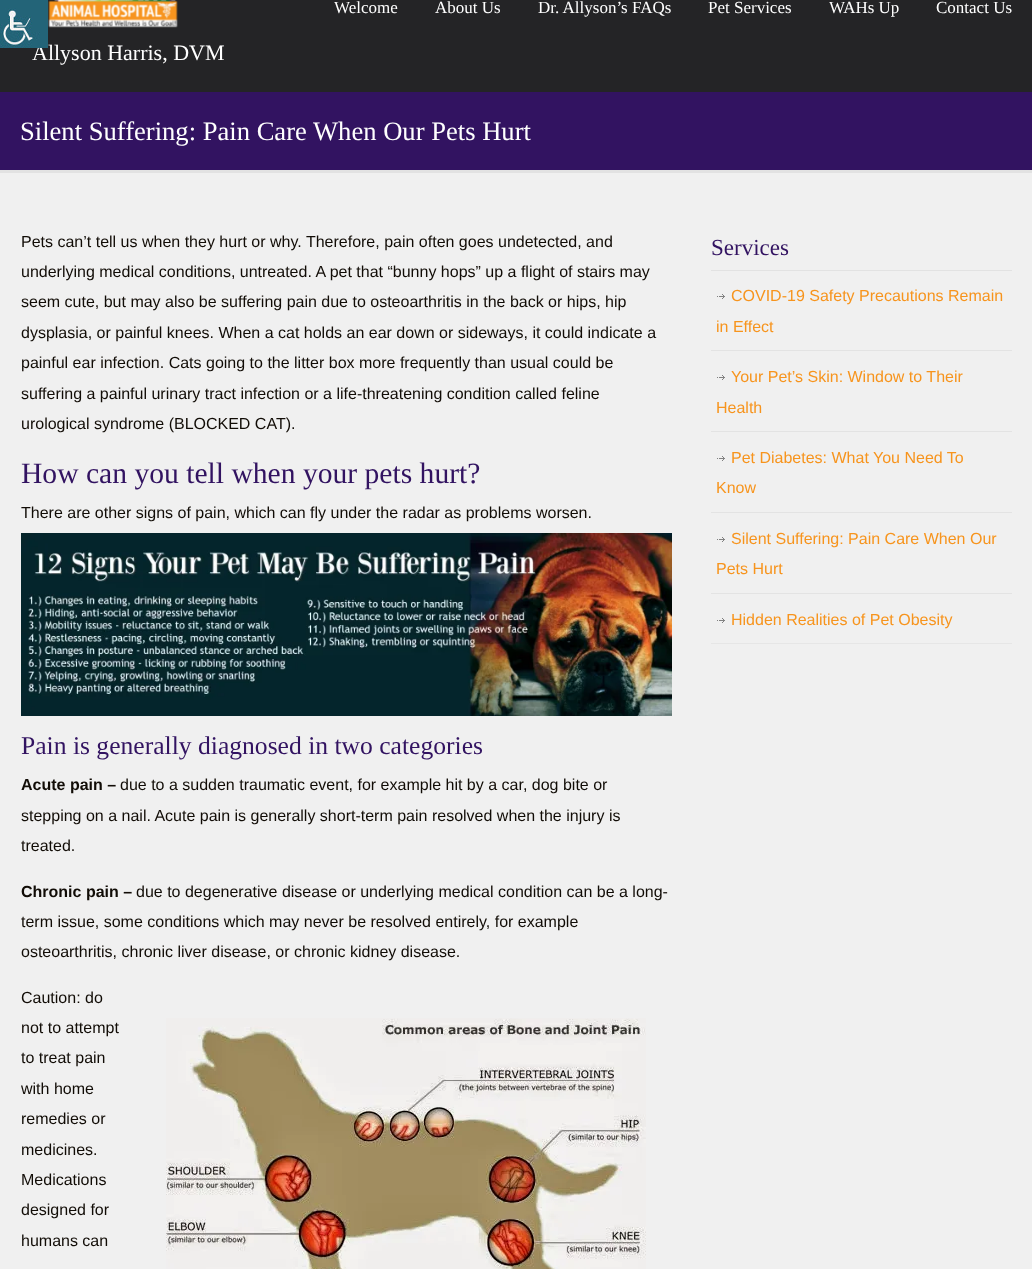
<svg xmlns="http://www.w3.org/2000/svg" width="1032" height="1269">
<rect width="100%" height="100%" fill="#321361"/>
<rect width="1032" height="92" fill="#242426"/>
<text x="32" y="60" style="font-family:Liberation Serif;font-size:22px;fill:#fff">Allyson Harris, DVM</text>
<image x="0" y="0" width="48" height="48" href="media/1.png"/>
<text x="334" y="13" style="font-family:Liberation Serif;font-size:17px;fill:#fff">Welcome</text>
<text x="435" y="13" style="font-family:Liberation Serif;font-size:17px;fill:#fff">About Us</text>
<text x="538" y="13" style="font-family:Liberation Serif;font-size:17px;fill:#fff">Dr. Allyson’s FAQs</text>
<text x="708" y="13" style="font-family:Liberation Serif;font-size:17px;fill:#fff">Pet Services</text>
<text x="829" y="13" style="font-family:Liberation Serif;font-size:17px;fill:#fff">WAHs Up</text>
<text x="936" y="13" style="font-family:Liberation Serif;font-size:17px;fill:#fff">Contact Us</text>
<image x="48" y="0" width="130" height="28" href="media/2.png"/>
<text x="20" y="140" style="font-family:Liberation Serif;font-size:26.6px;fill:#fff">Silent Suffering: Pain Care When Our Pets Hurt</text>
<rect y="173" width="1032" height="1096" fill="#f0f0f0"/>
<rect y="170" width="1032" height="3" fill="#e2e2e2"/>
<text x="21" y="247" style="font-family:Liberation Sans;font-size:16px;fill:#110c06">Pets can’t tell us when they hurt or why. Therefore, pain often goes undetected, and</text>
<text x="21" y="277" style="font-family:Liberation Sans;font-size:16px;fill:#110c06">underlying medical conditions, untreated. A pet that “bunny hops” up a flight of stairs may</text>
<text x="21" y="307" style="font-family:Liberation Sans;font-size:16px;fill:#110c06">seem cute, but may also be suffering pain due to osteoarthritis in the back or hips, hip</text>
<text x="21" y="338" style="font-family:Liberation Sans;font-size:16px;fill:#110c06">dysplasia, or painful knees. When a cat holds an ear down or sideways, it could indicate a</text>
<text x="21" y="368" style="font-family:Liberation Sans;font-size:16px;fill:#110c06">painful ear infection. Cats going to the litter box more frequently than usual could be</text>
<text x="21" y="399" style="font-family:Liberation Sans;font-size:16px;fill:#110c06">suffering a painful urinary tract infection or a life-threatening condition called feline</text>
<text x="21" y="429" style="font-family:Liberation Sans;font-size:16px;fill:#110c06">urological syndrome (BLOCKED CAT).</text>
<text x="21" y="483" style="font-family:Liberation Serif;font-size:29.6px;fill:#321361">How can you tell when your pets hurt?</text>
<text x="21" y="518" style="font-family:Liberation Sans;font-size:16px;fill:#110c06">There are other signs of pain, which can fly under the radar as problems worsen.</text>
<image x="21" y="533" width="651" height="183" href="media/3.png"/>
<text x="21" y="754" style="font-family:Liberation Serif;font-size:25.6px;fill:#321361">Pain is generally diagnosed in two categories</text>
<text x="21" y="790" style="font-family:Liberation Sans;font-size:16px;font-weight:bold;fill:#110c06">Acute pain –</text>
<text x="120" y="790" style="font-family:Liberation Sans;font-size:16px;fill:#110c06">due to a sudden traumatic event, for example hit by a car, dog bite or</text>
<text x="21" y="821" style="font-family:Liberation Sans;font-size:16px;fill:#110c06">stepping on a nail. Acute pain is generally short-term pain resolved when the injury is</text>
<text x="21" y="851" style="font-family:Liberation Sans;font-size:16px;fill:#110c06">treated.</text>
<text x="21" y="897" style="font-family:Liberation Sans;font-size:16px;font-weight:bold;fill:#110c06">Chronic pain –</text>
<text x="136" y="897" style="font-family:Liberation Sans;font-size:16px;fill:#110c06">due to degenerative disease or underlying medical condition can be a long-</text>
<text x="21" y="927" style="font-family:Liberation Sans;font-size:16px;fill:#110c06">term issue, some conditions which may never be resolved entirely, for example</text>
<text x="21" y="957" style="font-family:Liberation Sans;font-size:16px;fill:#110c06">osteoarthritis, chronic liver disease, or chronic kidney disease.</text>
<text x="21" y="1003" style="font-family:Liberation Sans;font-size:16px;fill:#110c06">Caution: do</text>
<text x="21" y="1033" style="font-family:Liberation Sans;font-size:16px;fill:#110c06">not to attempt</text>
<image x="166" y="1018" width="480" height="251" href="media/4.png"/>
<text x="21" y="1063" style="font-family:Liberation Sans;font-size:16px;fill:#110c06">to treat pain</text>
<text x="21" y="1094" style="font-family:Liberation Sans;font-size:16px;fill:#110c06">with home</text>
<text x="21" y="1124" style="font-family:Liberation Sans;font-size:16px;fill:#110c06">remedies or</text>
<text x="21" y="1155" style="font-family:Liberation Sans;font-size:16px;fill:#110c06">medicines.</text>
<text x="21" y="1185" style="font-family:Liberation Sans;font-size:16px;fill:#110c06">Medications</text>
<text x="21" y="1215" style="font-family:Liberation Sans;font-size:16px;fill:#110c06">designed for</text>
<text x="21" y="1246" style="font-family:Liberation Sans;font-size:16px;fill:#110c06">humans can</text>
<rect x="711" y="270" width="301" height="1" fill="#e2e2e2"/>
<text x="711" y="255" style="font-family:Liberation Serif;font-size:23px;fill:#321361">Services</text>
<rect x="711" y="350" width="301" height="1" fill="#e3e3e3"/>
<image x="717" y="294" width="8" height="5" href="media/5.png"/>
<text x="731" y="301" style="font-family:Liberation Sans;font-size:16px;fill:#f7941d">COVID-19 Safety Precautions Remain</text>
<text x="716" y="332" style="font-family:Liberation Sans;font-size:16px;fill:#f7941d">in Effect</text>
<rect x="711" y="431" width="301" height="1" fill="#e3e3e3"/>
<image x="717" y="375" width="8" height="5" href="media/5.png"/>
<text x="731" y="382" style="font-family:Liberation Sans;font-size:16px;fill:#f7941d">Your Pet’s Skin: Window to Their</text>
<text x="716" y="413" style="font-family:Liberation Sans;font-size:16px;fill:#f7941d">Health</text>
<rect x="711" y="512" width="301" height="1" fill="#e3e3e3"/>
<image x="717" y="456" width="8" height="5" href="media/5.png"/>
<text x="731" y="463" style="font-family:Liberation Sans;font-size:16px;fill:#f7941d">Pet Diabetes: What You Need To</text>
<text x="716" y="493" style="font-family:Liberation Sans;font-size:16px;fill:#f7941d">Know</text>
<rect x="711" y="593" width="301" height="1" fill="#e3e3e3"/>
<image x="717" y="537" width="8" height="5" href="media/5.png"/>
<text x="731" y="544" style="font-family:Liberation Sans;font-size:16px;fill:#f7941d">Silent Suffering: Pain Care When Our</text>
<text x="716" y="574" style="font-family:Liberation Sans;font-size:16px;fill:#f7941d">Pets Hurt</text>
<rect x="711" y="643" width="301" height="1" fill="#e6e6e6"/>
<image x="717" y="618" width="8" height="5" href="media/5.png"/>
<text x="731" y="625" style="font-family:Liberation Sans;font-size:16px;fill:#f7941d">Hidden Realities of Pet Obesity</text>
</svg>
